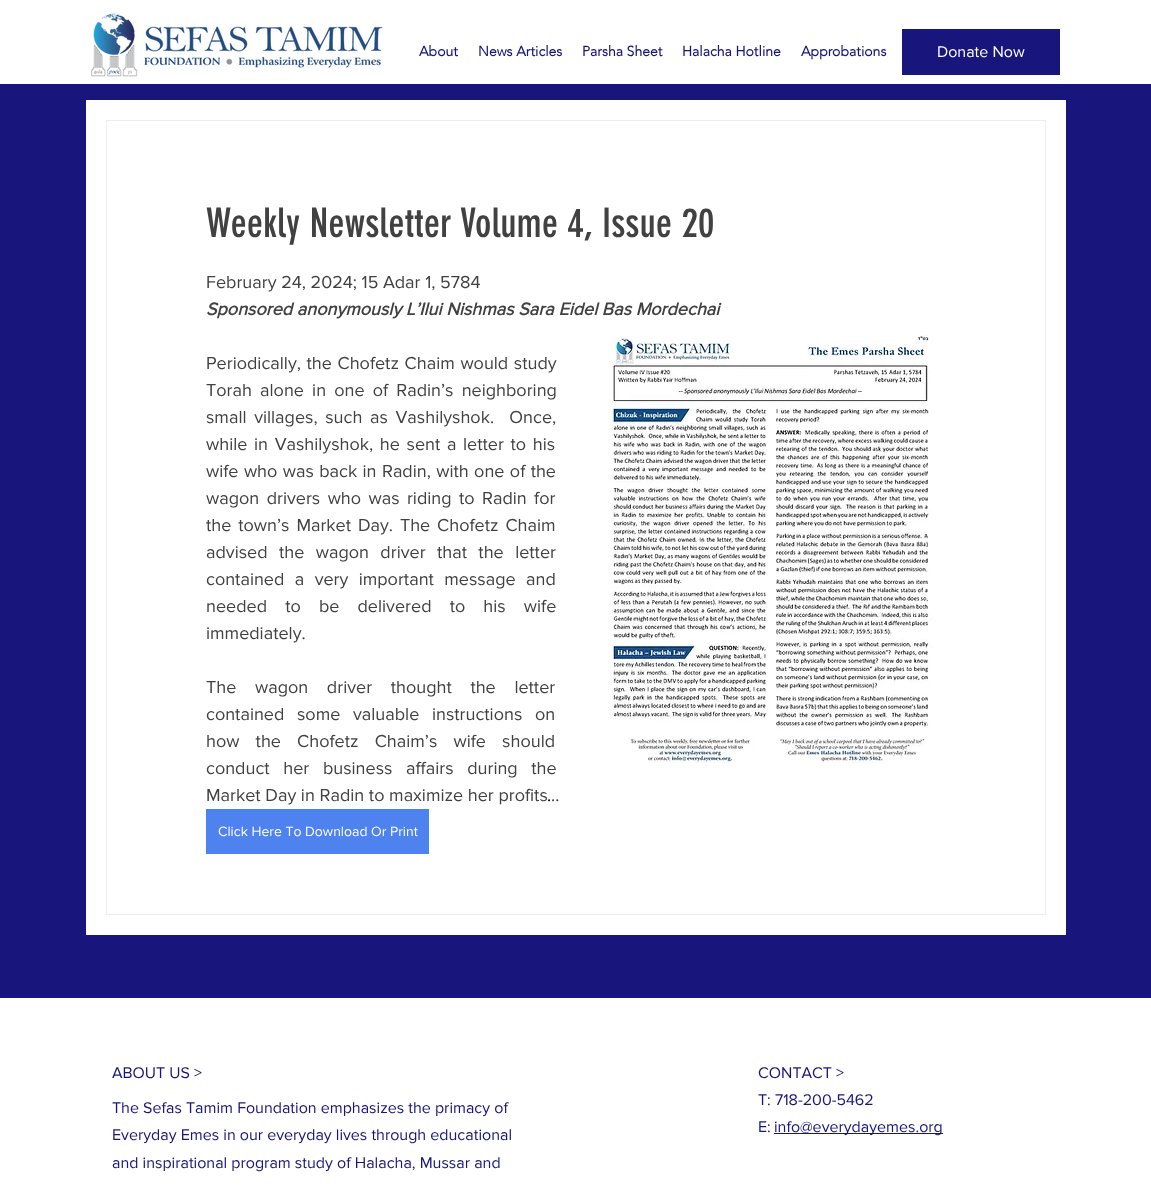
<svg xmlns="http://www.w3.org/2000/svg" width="1151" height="1190">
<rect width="100%" height="100%" fill="#18157c"/>
<rect width="1151" height="84" fill="#fff"/>
<text x="419" y="56" style="font-family:'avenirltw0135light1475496';font-size:14px;font-weight:bold;fill:#18157c">About</text>
<text x="478" y="56" style="font-family:'avenirltw0135light1475496';font-size:14px;font-weight:bold;fill:#18157c">News Articles</text>
<text x="582" y="56" style="font-family:'avenirltw0135light1475496';font-size:14px;font-weight:bold;fill:#18157c">Parsha Sheet</text>
<text x="682" y="56" style="font-family:'avenirltw0135light1475496';font-size:14px;font-weight:bold;fill:#18157c">Halacha Hotline</text>
<text x="801" y="56" style="font-family:'avenirltw0135light1475496';font-size:14px;font-weight:bold;fill:#18157c">Approbations</text>
<image x="91" y="13" width="292" height="64" href="media/1.png"/>
<rect x="902" y="29" width="158" height="46" fill="#18157c"/>
<text x="937" y="57" style="font-family:'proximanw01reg';font-size:16px;fill:#fff">Donate Now</text>
<rect x="86" y="100" width="980" height="835" fill="#fff"/>
<rect x="106.5" y="120.5" width="939" height="794" fill="none" stroke="#eeecec"/>
<text x="206" y="237" style="font-family:'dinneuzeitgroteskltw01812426';font-size:40px;fill:#414141">Weekly Newsletter Volume 4, Issue 20</text>
<text x="206" y="288" style="font-family:'proximanw01reg';font-size:18px;fill:#414141">February 24, 2024; 15 Adar 1, 5784</text>
<text x="206" y="315" style="font-family:'proximanw01reg';font-size:18px;font-weight:bold;font-style:italic;fill:#414141">Sponsored anonymously L’Ilui Nishmas Sara Eidel Bas Mordechai</text>
<text x="206" y="369" word-spacing="1" style="font-family:'proximanw01reg';font-size:18px;fill:#414141">Periodically, the Chofetz Chaim would study</text>
<text x="206" y="396" word-spacing="3.5" style="font-family:'proximanw01reg';font-size:18px;fill:#414141">Torah alone in one of Radin’s neighboring</text>
<text x="206" y="423" word-spacing="3" style="font-family:'proximanw01reg';font-size:18px;fill:#414141" xml:space="preserve">small villages, such as Vashilyshok.  Once,</text>
<text x="206" y="450" word-spacing="2" style="font-family:'proximanw01reg';font-size:18px;fill:#414141">while in Vashilyshok, he sent a letter to his</text>
<text x="206" y="477" word-spacing="0.75" style="font-family:'proximanw01reg';font-size:18px;fill:#414141">wife who was back in Radin, with one of the</text>
<text x="206" y="504" word-spacing="2.75" style="font-family:'proximanw01reg';font-size:18px;fill:#414141">wagon drivers who was riding to Radin for</text>
<text x="206" y="531" word-spacing="2.25" style="font-family:'proximanw01reg';font-size:18px;fill:#414141">the town’s Market Day. The Chofetz Chaim</text>
<text x="206" y="558" word-spacing="6.75" style="font-family:'proximanw01reg';font-size:18px;fill:#414141">advised the wagon driver that the letter</text>
<text x="206" y="585" word-spacing="5.75" style="font-family:'proximanw01reg';font-size:18px;fill:#414141">contained a very important message and</text>
<text x="206" y="612" word-spacing="13.5" style="font-family:'proximanw01reg';font-size:18px;fill:#414141">needed to be delivered to his wife</text>
<text x="206" y="639" style="font-family:'proximanw01reg';font-size:18px;fill:#414141">immediately.</text>
<image x="612" y="335" width="320" height="428" href="media/2.png"/>
<text x="206" y="693" word-spacing="14" style="font-family:'proximanw01reg';font-size:18px;fill:#414141">The wagon driver thought the letter</text>
<text x="206" y="720" word-spacing="8" style="font-family:'proximanw01reg';font-size:18px;fill:#414141">contained some valuable instructions on</text>
<text x="206" y="747" word-spacing="11.5" style="font-family:'proximanw01reg';font-size:18px;fill:#414141">how the Chofetz Chaim’s wife should</text>
<text x="206" y="774" word-spacing="9" style="font-family:'proximanw01reg';font-size:18px;fill:#414141">conduct her business affairs during the</text>
<text x="206" y="801" style="font-family:'proximanw01reg';font-size:18px;fill:#414141">Market Day in Radin to maximize her profits</text>
<text x="547" y="801" style="font-family:'proximanw01reg';font-size:18px;fill:#000">.</text>
<text x="551" y="801" style="font-family:'proximanw01reg';font-size:18px;fill:#414141">..</text>
<rect x="206" y="809" width="223" height="45" fill="#4d82ef"/>
<text x="218" y="836" style="font-family:'proximanw01reg';font-size:14px;fill:#fff">Click Here To Download Or Print</text>
<rect y="998" width="1151" height="192" fill="#fff"/>
<text x="112" y="1078" style="font-family:'proximanw01reg';font-size:16px;fill:#18157c">ABOUT US &gt;</text>
<text x="758" y="1078" style="font-family:'proximanw01reg';font-size:16px;fill:#18157c">CONTACT &gt;</text>
<text x="758" y="1105" style="font-family:'proximanw01reg';font-size:16px;fill:#18157c">T: 718-200-5462</text>
<text x="758" y="1132" style="font-family:'proximanw01reg';font-size:16px;fill:#18157c">E:</text>
<rect x="774" y="1133" width="169" height="1" fill="#18157c"/>
<text x="774" y="1132" style="font-family:'proximanw01reg';font-size:16px;fill:#18157c">info@everydayemes.org</text>
<text x="112" y="1113" style="font-family:'proximanw01reg';font-size:16px;fill:#18157c">The Sefas Tamim Foundation emphasizes the primacy of</text>
<text x="112" y="1140" style="font-family:'proximanw01reg';font-size:16px;fill:#18157c">Everyday Emes in our everyday lives through educational</text>
<text x="112" y="1168" style="font-family:'proximanw01reg';font-size:16px;fill:#18157c">and inspirational program study of Halacha, Mussar and</text>
</svg>
